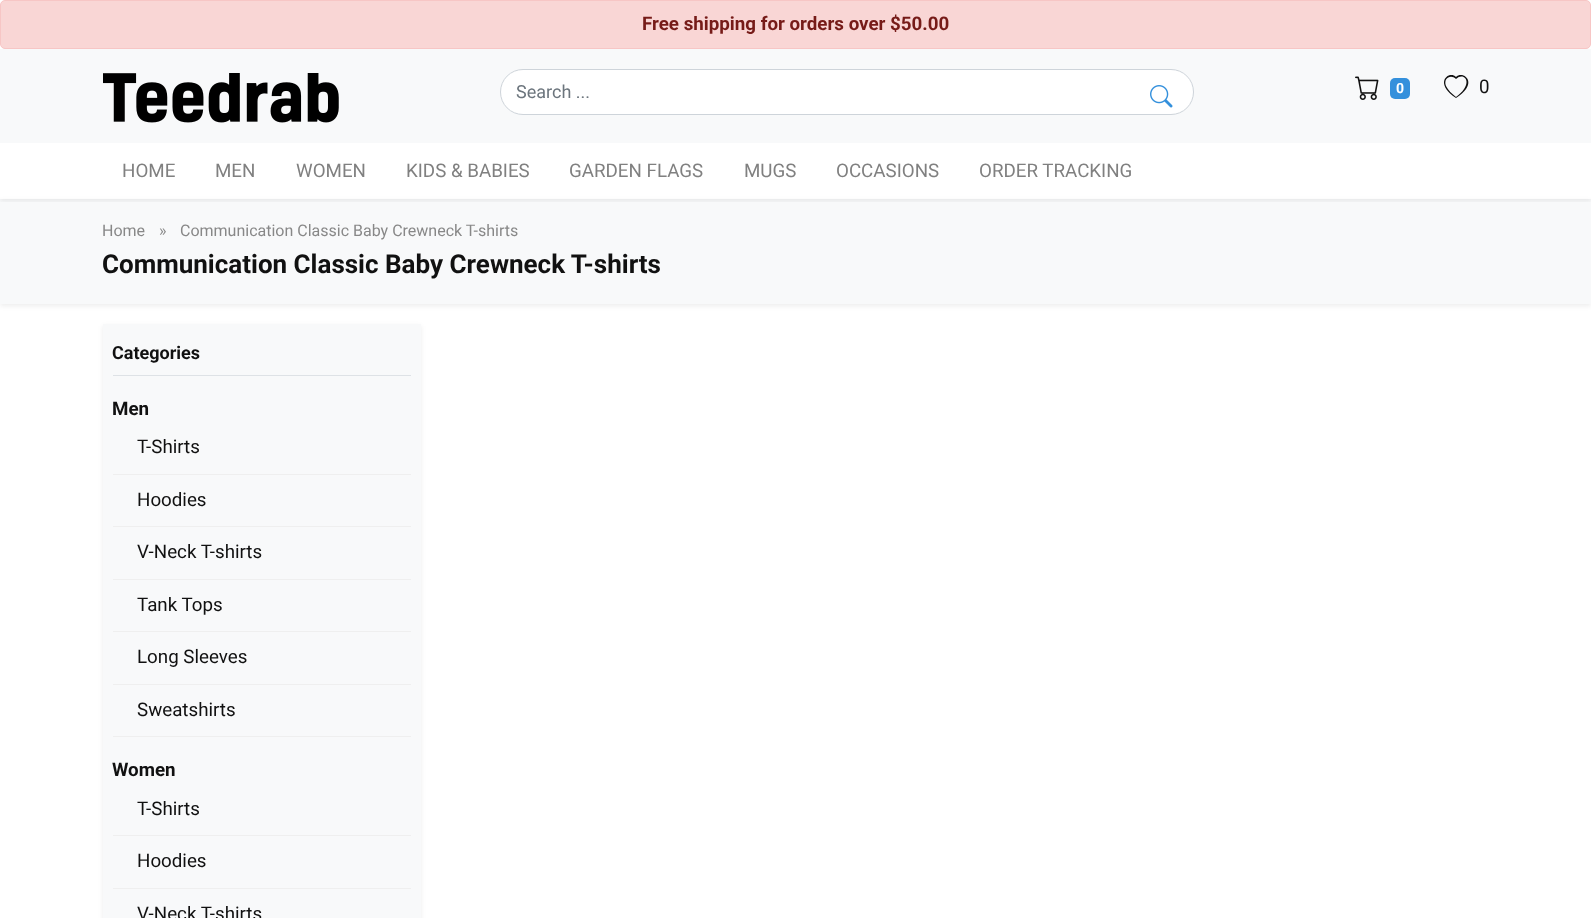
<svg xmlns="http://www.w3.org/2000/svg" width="1591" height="918">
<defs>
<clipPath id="clip1"><rect x="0" y="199" width="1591" height="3"/></clipPath>
</defs>
<rect width="100%" height="100%" fill="#fff"/>
<rect x="0.5" y="0.5" width="1590" height="48" rx="4.5" fill="#f9d6d5" stroke="#f7c6c5"/>
<text x="642" y="30" style="font-family:Roboto;font-size:18.75px;font-weight:bold;fill:#761b18">Free shipping for orders over $50.00</text>
<rect y="49" width="1591" height="94" fill="#f8f9fa"/>
<image x="103" y="73" width="236" height="50" href="media/1.png"/>
<rect x="500.5" y="69.5" width="693" height="45" rx="22.5" fill="#fff" stroke="#ced4da"/>
<text x="516" y="98" style="font-family:Roboto;font-size:18px;fill:#6c757d">Search ...</text>
<image x="1150" y="85" width="23" height="23" href="media/2.png"/>
<image x="1355" y="76" width="24" height="24" href="media/3.png"/>
<rect x="1390" y="78" width="20" height="21" rx="5" fill="#3490dc"/>
<text x="1396" y="93" style="font-family:Roboto;font-size:14px;font-weight:bold;fill:#fff">0</text>
<text x="1479" y="93" style="font-family:Roboto;font-size:18.75px;fill:#111">0</text>
<path d="M1456 79c-5-5-13-1-10 7c2 4 6 8 10 11c19-14 8-26 0-18zm0 19c-23-15-7-28 0-21c7-7 24 6 0 21z" fill="#111"/>
<rect y="201" width="1591" height="105" fill="#00000012" filter="blur(2.5px)"/>
<rect y="199" width="1591" height="105" fill="#f8f9fa"/>
<g clip-path="url(#clip1)">
<rect y="145" width="1591" height="56" fill="#00000012" filter="blur(2.5px)"/>
</g>
<text x="122" y="177" style="font-family:Roboto;font-size:18.75px;fill:#808080">HOME</text>
<text x="215" y="177" style="font-family:Roboto;font-size:18.75px;fill:#808080">MEN</text>
<text x="296" y="177" style="font-family:Roboto;font-size:18.75px;fill:#808080">WOMEN</text>
<text x="406" y="177" style="font-family:Roboto;font-size:18.75px;fill:#808080">KIDS &amp; BABIES</text>
<text x="569" y="177" style="font-family:Roboto;font-size:18.75px;fill:#808080">GARDEN FLAGS</text>
<text x="744" y="177" style="font-family:Roboto;font-size:18.75px;fill:#808080">MUGS</text>
<text x="836" y="177" style="font-family:Roboto;font-size:18.75px;fill:#808080">OCCASIONS</text>
<text x="979" y="177" style="font-family:Roboto;font-size:18.75px;fill:#808080">ORDER TRACKING</text>
<text x="102" y="236" style="font-family:Roboto;font-size:16px;fill:#888">Home</text>
<text x="159" y="236" style="font-family:Roboto;font-size:16px;fill:#888">»</text>
<text x="180" y="236" style="font-family:Roboto;font-size:16px;fill:#888">Communication Classic Baby Crewneck T-shirts</text>
<text x="102" y="273" style="font-family:Roboto;font-size:26px;font-weight:bold;fill:#111">Communication Classic Baby Crewneck T-shirts</text>
<rect x="103" y="326" width="318" height="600" fill="#00000012" filter="blur(2.5px)"/>
<rect x="103" y="324" width="318" height="594" fill="#f8f9fa"/>
<rect x="113" y="375" width="298" height="1" fill="#dee2e6"/>
<text x="112" y="359" style="font-family:Roboto;font-size:18px;font-weight:bold;fill:#111">Categories</text>
<text x="112" y="415" style="font-family:Roboto;font-size:18.75px;font-weight:bold;fill:#111">Men</text>
<rect x="113" y="474" width="298" height="1" fill="#efefef"/>
<text x="137" y="453" style="font-family:Roboto;font-size:18.75px;fill:#111">T-Shirts</text>
<rect x="113" y="526" width="298" height="1" fill="#efefef"/>
<text x="137" y="506" style="font-family:Roboto;font-size:18.75px;fill:#111">Hoodies</text>
<rect x="113" y="579" width="298" height="1" fill="#efefef"/>
<text x="137" y="558" style="font-family:Roboto;font-size:18.75px;fill:#111">V-Neck T-shirts</text>
<rect x="113" y="631" width="298" height="1" fill="#efefef"/>
<text x="137" y="611" style="font-family:Roboto;font-size:18.75px;fill:#111">Tank Tops</text>
<rect x="113" y="684" width="298" height="1" fill="#efefef"/>
<text x="137" y="663" style="font-family:Roboto;font-size:18.75px;fill:#111">Long Sleeves</text>
<rect x="113" y="736" width="298" height="1" fill="#efefef"/>
<text x="137" y="716" style="font-family:Roboto;font-size:18.75px;fill:#111">Sweatshirts</text>
<text x="112" y="776" style="font-family:Roboto;font-size:18.75px;font-weight:bold;fill:#111">Women</text>
<rect x="113" y="835" width="298" height="1" fill="#efefef"/>
<text x="137" y="815" style="font-family:Roboto;font-size:18.75px;fill:#111">T-Shirts</text>
<rect x="113" y="888" width="298" height="1" fill="#efefef"/>
<text x="137" y="867" style="font-family:Roboto;font-size:18.75px;fill:#111">Hoodies</text>
<text x="137" y="920" style="font-family:Roboto;font-size:18.75px;fill:#111">V-Neck T-shirts</text>
</svg>
